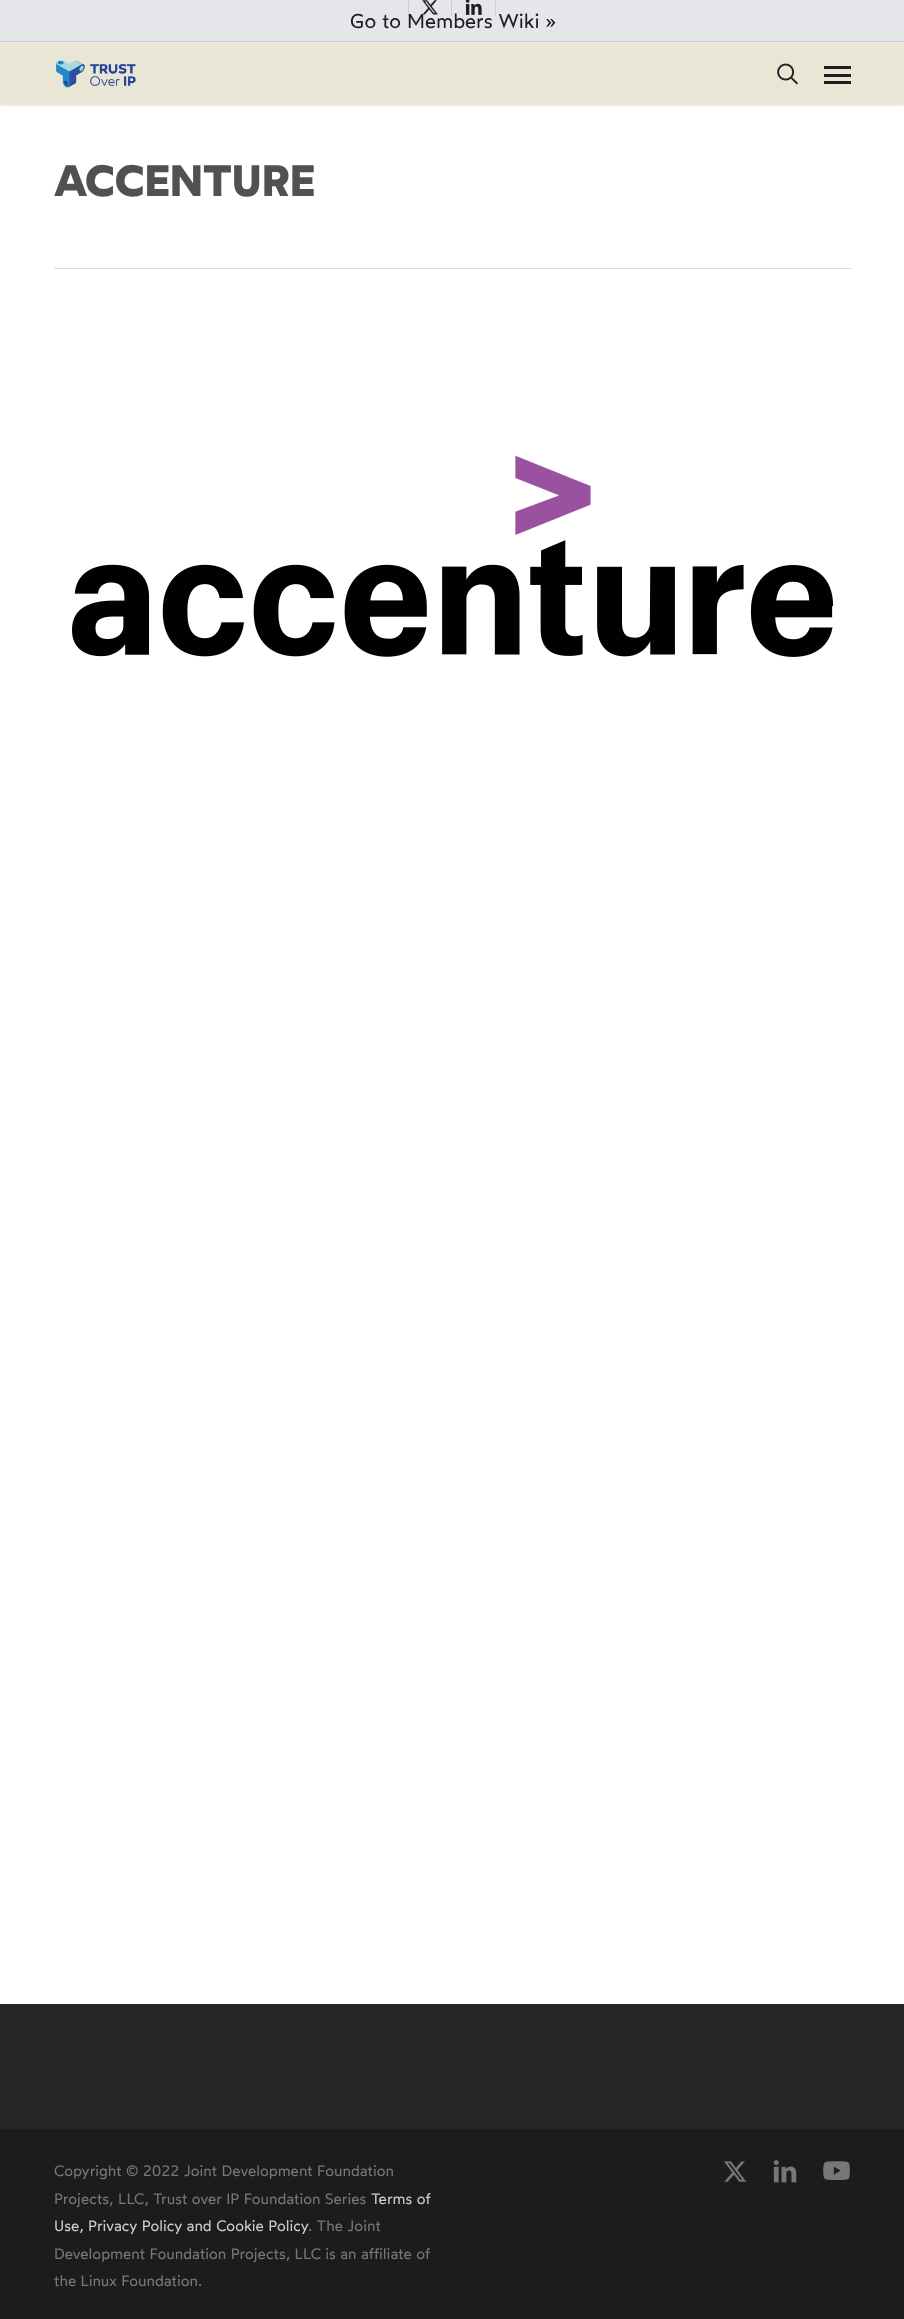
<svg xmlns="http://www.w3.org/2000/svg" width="904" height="2319">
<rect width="100%" height="100%" fill="#fff"/>
<rect width="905" height="104" fill="#00000038" filter="blur(2px)"/>
<rect y="43" width="904" height="61" fill="#eae6d5"/>
<rect width="904" height="43" fill="#e4e6e9"/>
<rect y="41" width="904" height="1" fill="#cdcfd2"/>
<rect x="408" width="1" height="16" fill="#0000001a"/>
<text x="350" y="28" style="font-family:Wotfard;font-size:20px;fill:#1d1f20">Go to Members Wiki »</text>
<image x="422" y="0" width="16" height="15" href="media/1.png"/>
<rect x="495" width="1" height="16" fill="#cdcfd2"/>
<rect x="451" width="1" height="16" fill="#cdcfd2"/>
<image x="465" y="0" width="17" height="15" href="media/2.png"/>
<image x="56" y="60" width="80" height="28" href="media/3.png"/>
<image x="777" y="63" width="21" height="22" href="media/4.png"/>
<rect x="824" y="66" width="27" height="3" fill="#1d1f20"/>
<rect x="824" y="81" width="27" height="3" fill="#1d1f20"/>
<rect x="824" y="74" width="27" height="3" fill="#1d1f20"/>
<rect x="54" y="268" width="797" height="1" fill="#ddd"/>
<text x="54" y="196" style="font-family:Wotfard;font-size:43.75px;font-weight:bold;fill:#515151">ACCENTURE</text>
<image x="72" y="455" width="762" height="202" href="media/5.png"/>
<rect y="2004" width="904" height="125" fill="#252525"/>
<rect y="2129" width="904" height="190" fill="#1c1c1c"/>
<text x="54" y="2176" style="font-family:Wotfard;font-size:15px;fill:#777">Copyright © 2022 Joint Development Foundation</text>
<text x="54" y="2204" style="font-family:Wotfard;font-size:15px;fill:#777">Projects, LLC, Trust over IP Foundation Series</text>
<text x="371" y="2204" style="font-family:Wotfard;font-size:15px;fill:#ccc">Terms of</text>
<text x="54" y="2231" style="font-family:Wotfard;font-size:15px;fill:#ccc">Use, Privacy Policy and Cookie Policy</text>
<text x="308" y="2231" style="font-family:Wotfard;font-size:15px;fill:#777">. The Joint</text>
<text x="54" y="2259" style="font-family:Wotfard;font-size:15px;fill:#777">Development Foundation Projects, LLC is an affiliate of</text>
<text x="54" y="2286" style="font-family:Wotfard;font-size:15px;fill:#777">the Linux Foundation.</text>
<image x="724" y="2161" width="23" height="21" href="media/6.png"/>
<image x="773" y="2160" width="24" height="23" href="media/7.png"/>
<image x="823" y="2161" width="27" height="19" href="media/8.png"/>
</svg>
